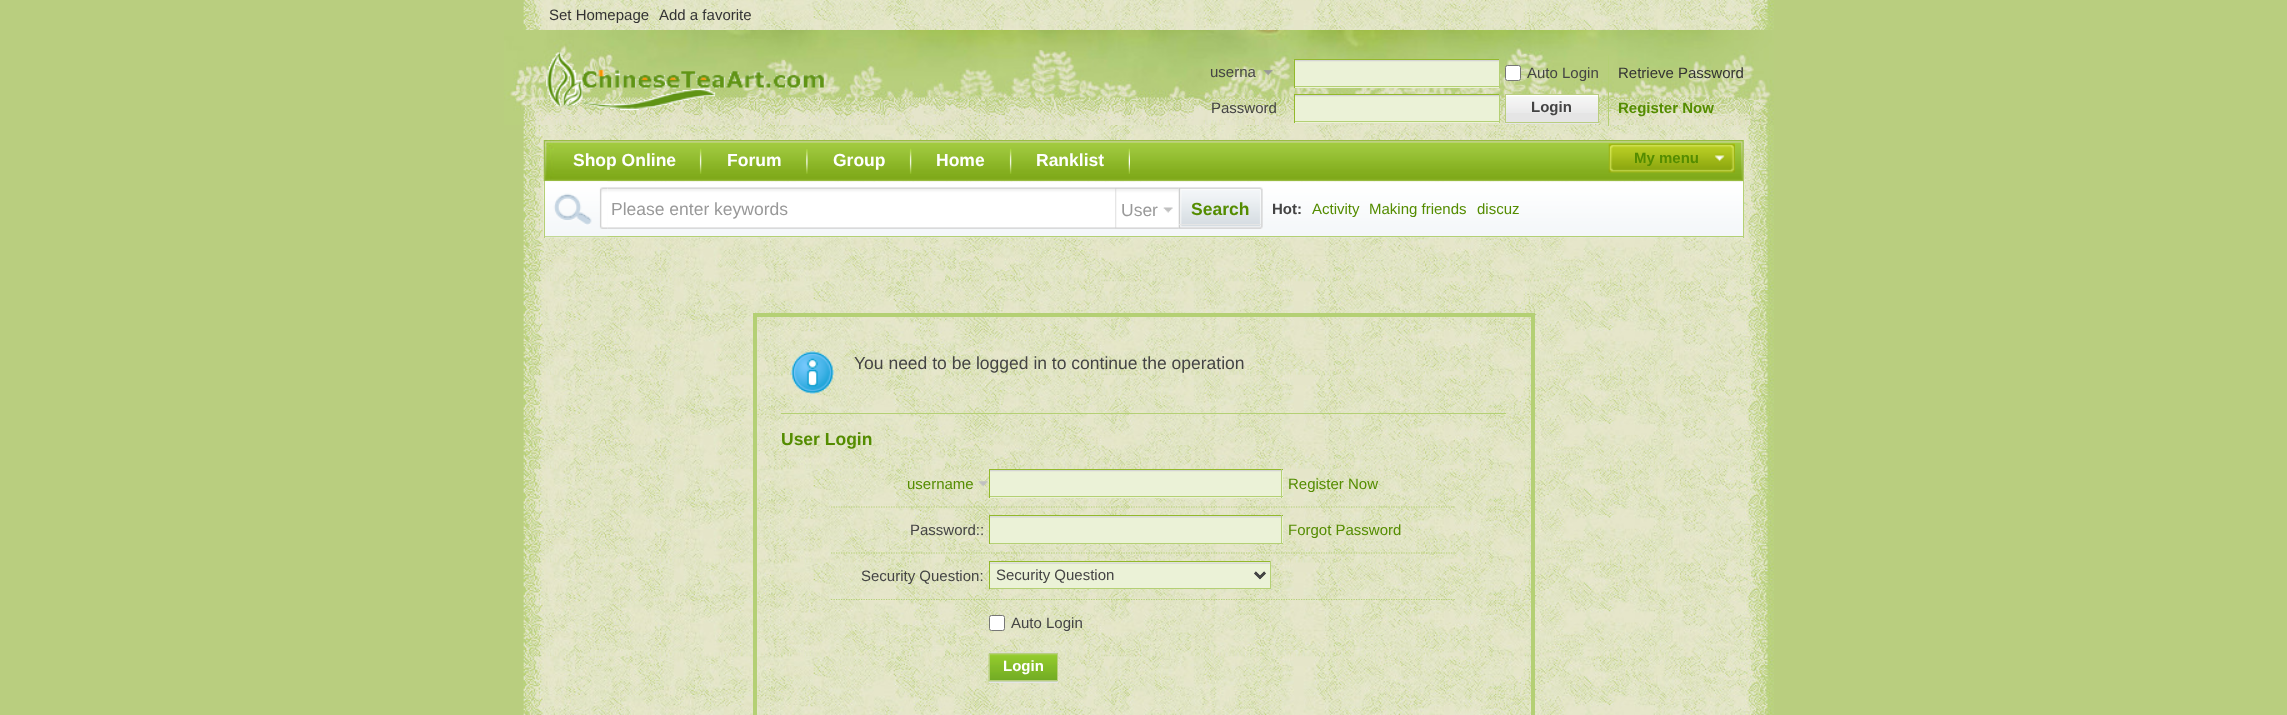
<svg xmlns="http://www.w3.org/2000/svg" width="2287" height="715">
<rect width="100%" height="100%" fill="#b9ce7f"/>
<image x="523" y="0" width="1251" height="715" href="media/1.png"/>
<text x="549" y="20" style="font-family:Liberation Sans;font-size:15px;fill:#333">Set Homepage</text>
<text x="659" y="20" style="font-family:Liberation Sans;font-size:15px;fill:#333">Add a favorite</text>
<image x="504" y="30" width="1270" height="95" href="media/2.png"/>
<image x="546" y="52" width="278" height="59" href="media/3.png"/>
<image x="1263" y="70" width="10" height="6" href="media/4.png"/>
<text x="1210" y="77" style="font-family:Liberation Sans;font-size:15px;fill:#444">userna</text>
<rect x="1295" y="61" width="204" height="27" fill="#ebf2d7"/>
<image x="1293" y="60" width="206" height="2" href="media/5.png"/>
<rect x="1294" y="59" width="206" height="1" fill="#92b92a"/>
<rect x="1499" y="59" width="1" height="29" fill="#b4d074"/>
<rect x="1294" y="86" width="206" height="1" fill="#b4d074"/>
<rect x="1294" y="59" width="1" height="29" fill="#92b92a"/>
<rect x="1505.5" y="65.5" width="15" height="15" rx="2" fill="#fff" stroke="#767676"/>
<text x="1527" y="78" style="font-family:Liberation Sans;font-size:15px;fill:#444">Auto Login</text>
<text x="1618" y="78" style="font-family:Liberation Sans;font-size:15px;fill:#333">Retrieve Password</text>
<text x="1211" y="113" style="font-family:Liberation Sans;font-size:15px;fill:#444">Password</text>
<rect x="1295" y="96" width="204" height="27" fill="#ebf2d7"/>
<image x="1293" y="95" width="206" height="2" href="media/6.png"/>
<rect x="1294" y="94" width="206" height="1" fill="#92b92a"/>
<rect x="1499" y="94" width="1" height="29" fill="#b4d074"/>
<rect x="1294" y="121" width="206" height="1" fill="#b4d074"/>
<rect x="1294" y="94" width="1" height="29" fill="#92b92a"/>
<rect x="1608" y="55" width="1" height="71" fill="#b4d074"/>
<path d="M1505 122v2h94v-29v27z" fill="#e5e5e5"/>
<rect x="1506" y="113" width="92" height="9" fill="#e5e5e5"/>
<image x="1506" y="95" width="92" height="18" href="media/7.png"/>
<rect x="1505.5" y="94.5" width="93" height="28" fill="none" stroke="#b9ce7f"/>
<text x="1531" y="112" style="font-family:Liberation Sans;font-size:15px;font-weight:bold;fill:#444">Login</text>
<text x="1618" y="113" style="font-family:Liberation Sans;font-size:15px;font-weight:bold;fill:#548c00">Register Now</text>
<image x="543" y="140" width="1201" height="42" href="media/8.png"/>
<image x="699" y="148" width="3" height="26" href="media/9.png"/>
<text x="573" y="166" style="font-family:Liberation Sans;font-size:17.5px;font-weight:bold;fill:#fff">Shop Online</text>
<image x="806" y="149" width="2" height="25" href="media/10.png"/>
<text x="727" y="166" style="font-family:Liberation Sans;font-size:17.5px;font-weight:bold;fill:#fff">Forum</text>
<image x="909" y="148" width="3" height="26" href="media/9.png"/>
<text x="833" y="166" style="font-family:Liberation Sans;font-size:17.5px;font-weight:bold;fill:#fff">Group</text>
<image x="1009" y="148" width="3" height="26" href="media/9.png"/>
<text x="936" y="166" style="font-family:Liberation Sans;font-size:17.5px;font-weight:bold;fill:#fff">Home</text>
<image x="1128" y="148" width="2" height="26" href="media/11.png"/>
<text x="1036" y="166" style="font-family:Liberation Sans;font-size:17.5px;font-weight:bold;fill:#fff">Ranklist</text>
<image x="1608" y="143" width="127" height="30" href="media/12.png"/>
<text x="1634" y="163" style="font-family:Liberation Sans;font-size:15px;font-weight:bold;fill:#548c00">My menu</text>
<image x="543" y="181" width="1200" height="57" href="media/13.png"/>
<rect x="1743" y="181" width="1" height="57" fill="#b4d074"/>
<rect x="544" y="236" width="1200" height="1" fill="#b4d074"/>
<rect x="544" y="181" width="1" height="57" fill="#b4d074"/>
<image x="545" y="181" width="63" height="56" href="media/14.png"/>
<image x="607" y="187" width="508" height="42" href="media/15.png"/>
<text x="611" y="215" style="font-family:Liberation Sans;font-size:17.5px;fill:#999">Please enter keywords</text>
<image x="1115" y="187" width="64" height="42" href="media/16.png"/>
<image x="1163" y="207" width="10" height="6" href="media/17.png"/>
<text x="1121" y="216" style="font-family:Liberation Sans;font-size:17.5px;fill:#999">User</text>
<image x="1178" y="187" width="85" height="42" href="media/18.png"/>
<rect x="1179" y="224" width="82" height="1" fill="#e5e5e5"/>
<text x="1191" y="215" style="font-family:Liberation Sans;font-size:17.5px;font-weight:bold;fill:#548c00">Search</text>
<text x="1272" y="214" style="font-family:Liberation Sans;font-size:15px;font-weight:bold;fill:#444">Hot:</text>
<text x="1312" y="214" style="font-family:Liberation Sans;font-size:15px;fill:#548c00">Activity</text>
<text x="1369" y="214" style="font-family:Liberation Sans;font-size:15px;fill:#548c00">Making friends</text>
<text x="1477" y="214" style="font-family:Liberation Sans;font-size:15px;fill:#548c00">discuz</text>
<rect x="755" y="315" width="778" height="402" fill="none" stroke="#b4d074" stroke-width="4"/>
<image x="791" y="351" width="43" height="43" href="media/19.png"/>
<text x="854" y="369" style="font-family:Liberation Sans;font-size:17.5px;fill:#444">You need to be logged in to continue the operation</text>
<rect x="781" y="413" width="725" height="1" fill="#b4d074"/>
<text x="781" y="445" style="font-family:Liberation Sans;font-size:17.5px;font-weight:bold;fill:#548c00">User Login</text>
<path d="M831 507h625" fill="none" stroke="#b4d074" stroke-width="1.2" stroke-dasharray="1.25 1.25"/>
<text x="907" y="489" style="font-family:Liberation Sans;font-size:15px;fill:#548c00">username</text>
<image x="978" y="481" width="10" height="6" href="media/20.png"/>
<rect x="990" y="470" width="293" height="28" fill="#ebf2d7"/>
<image x="988" y="470" width="295" height="2" href="media/21.png"/>
<rect x="989" y="469" width="294" height="1" fill="#92b92a"/>
<rect x="1281" y="469" width="1" height="29" fill="#b4d074"/>
<rect x="989" y="496" width="294" height="1" fill="#b4d074"/>
<rect x="989" y="469" width="1" height="29" fill="#92b92a"/>
<text x="1288" y="489" style="font-family:Liberation Sans;font-size:15px;fill:#548c00">Register Now</text>
<path d="M831 553h625" fill="none" stroke="#b4d074" stroke-width="1.2" stroke-dasharray="1.25 1.25"/>
<text x="910" y="535" style="font-family:Liberation Sans;font-size:15px;fill:#444">Password::</text>
<rect x="990" y="516" width="293" height="27" fill="#ebf2d7"/>
<image x="988" y="516" width="295" height="2" href="media/22.png"/>
<rect x="989" y="515" width="294" height="1" fill="#92b92a"/>
<rect x="1281" y="515" width="1" height="29" fill="#b4d074"/>
<rect x="989" y="543" width="294" height="1" fill="#b4d074"/>
<rect x="989" y="515" width="1" height="29" fill="#92b92a"/>
<text x="1288" y="535" style="font-family:Liberation Sans;font-size:15px;fill:#548c00">Forgot Password</text>
<path d="M831 599.5h625" fill="none" stroke="#b4d074" stroke-width="1.2" stroke-dasharray="1.25 1.25"/>
<text x="861" y="581" style="font-family:Liberation Sans;font-size:15px;fill:#444">Security Question:</text>
<rect x="990" y="562" width="280" height="26" fill="#ebf2d7"/>
<image x="990" y="562" width="280" height="18" href="media/23.png"/>
<rect x="989" y="561" width="282" height="1" fill="#92b92a"/>
<rect x="1270" y="561" width="1" height="28" fill="#b4d074"/>
<rect x="989" y="588" width="282" height="1" fill="#b4d074"/>
<rect x="989" y="561" width="1" height="28" fill="#92b92a"/>
<path d="M1255 572.5l5 5l5-5" fill="none" stroke="#444" stroke-width="2.5"/>
<text x="996" y="580" style="font-family:Liberation Sans;font-size:15px;fill:#444">Security Question</text>
<rect x="989.5" y="615.5" width="15" height="15" rx="2" fill="#fff" stroke="#767676"/>
<text x="1011" y="628" style="font-family:Liberation Sans;font-size:15px;fill:#444">Auto Login</text>
<path d="M989 681v2h69v-29v27z" fill="#e5e5e5"/>
<image x="988" y="652" width="70" height="30" href="media/24.png"/>
<rect x="989.5" y="653.5" width="68" height="27" fill="none" stroke="#b9ce7f"/>
<text x="1003" y="671" style="font-family:Liberation Sans;font-size:15px;font-weight:bold;fill:#fff">Login</text>
</svg>
